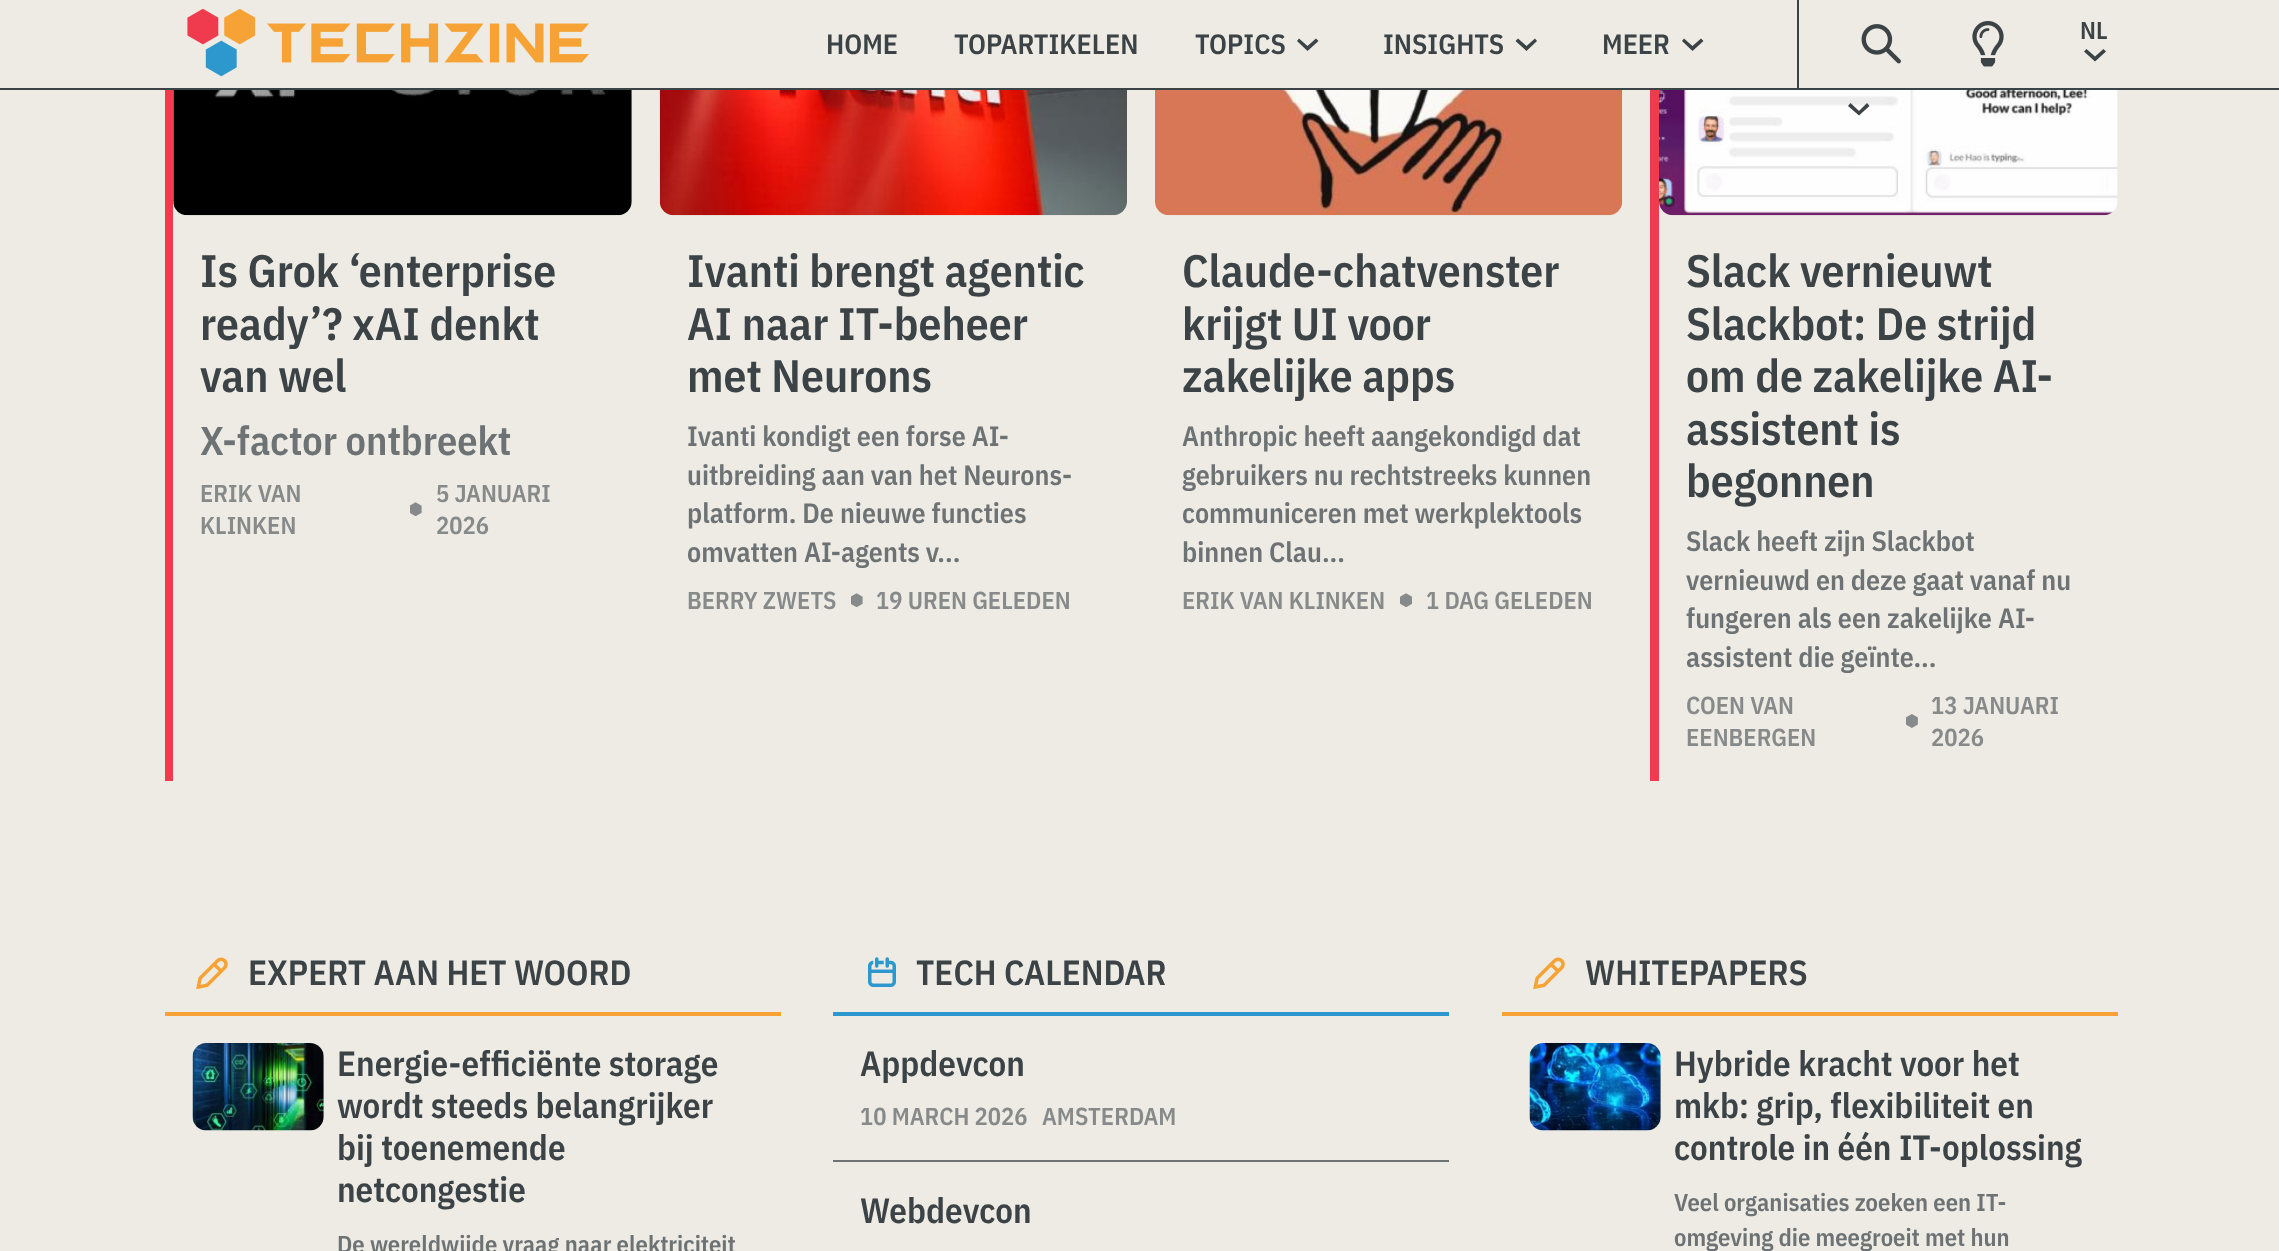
<svg xmlns="http://www.w3.org/2000/svg" width="2279" height="1251">
<rect width="100%" height="100%" fill="#edebe4"/>
<rect y="88" width="2279" height="2" fill="#3b4346"/>
<image x="187" y="9" width="402" height="68" href="media/1.png"/>
<rect x="1797" width="2" height="88" fill="#3b4346"/>
<text x="826" y="54" style="font-family:IBM Plex Sans Condensed;font-size:28px;font-weight:600;fill:#3b4346">HOME</text>
<text x="954" y="54" style="font-family:IBM Plex Sans Condensed;font-size:28px;font-weight:600;fill:#3b4346">TOPARTIKELEN</text>
<text x="1195" y="54" style="font-family:IBM Plex Sans Condensed;font-size:28px;font-weight:600;fill:#3b4346">TOPICS</text>
<path d="M1318.5 41l-11 10l-10.5-10l2-2.5l8.5 7.5l8.5-7.5z" fill="#3b4346"/>
<text x="1383" y="54" style="font-family:IBM Plex Sans Condensed;font-size:28px;font-weight:600;fill:#3b4346">INSIGHTS</text>
<path d="M1537 41l-10.5 10l-11-10l2.5-2.5l8.5 7.5l8.5-7.5z" fill="#3b4346"/>
<text x="1602" y="54" style="font-family:IBM Plex Sans Condensed;font-size:28px;font-weight:600;fill:#3b4346">MEER</text>
<path d="M1703.5 41l-11 10l-10.5-10l2-2.5l8.5 7.5l8.5-7.5z" fill="#3b4346"/>
<image x="1861" y="24" width="40" height="40" href="media/2.png"/>
<image x="1659" y="90" width="459" height="126" href="media/9.png"/>
<path d="M1869.5 106l-10.5 9.5l-11-9.5l2.5-3l8.5 8l8-8z" fill="#3b4346"/>
<image x="1972" y="21" width="32" height="46" href="media/3.png"/>
<text x="2080" y="39" style="font-family:IBM Plex Sans Condensed;font-size:24.5px;font-weight:600;fill:#3b4346">NL</text>
<path d="M2106 51.5l-11 10l-11-10l2.5-2.5l8.5 7.5l8.5-7.5z" fill="#3b4346"/>
<rect x="165" y="90" width="8" height="691" fill="#f03b4f"/>
<image x="173" y="90" width="459" height="126" href="media/4.png"/>
<text x="200" y="287" style="font-family:IBM Plex Sans Condensed;font-size:45.5px;font-weight:600;fill:#3b4346">Is Grok ‘enterprise</text>
<text x="200" y="340" style="font-family:IBM Plex Sans Condensed;font-size:45.5px;font-weight:600;fill:#3b4346">ready’? xAI denkt</text>
<text x="200" y="392" style="font-family:IBM Plex Sans Condensed;font-size:45.5px;font-weight:600;fill:#3b4346">van wel</text>
<text x="200" y="455" style="font-family:IBM Plex Sans Condensed;font-size:40.25px;font-weight:600;fill:#6d7274">X-factor ontbreekt</text>
<text x="200" y="502" style="font-family:IBM Plex Sans Condensed;font-size:24.5px;font-weight:600;fill:#878a8a">ERIK VAN</text>
<text x="200" y="534" style="font-family:IBM Plex Sans Condensed;font-size:24.5px;font-weight:600;fill:#878a8a">KLINKEN</text>
<image x="410" y="502" width="12" height="14" href="media/5.png"/>
<text x="436" y="502" style="font-family:IBM Plex Sans Condensed;font-size:24.5px;font-weight:600;fill:#878a8a">5 JANUARI</text>
<text x="436" y="534" style="font-family:IBM Plex Sans Condensed;font-size:24.5px;font-weight:600;fill:#878a8a">2026</text>
<image x="659" y="90" width="468" height="126" href="media/6.png"/>
<text x="687" y="287" style="font-family:IBM Plex Sans Condensed;font-size:45.5px;font-weight:600;fill:#3b4346">Ivanti brengt agentic</text>
<text x="687" y="340" style="font-family:IBM Plex Sans Condensed;font-size:45.5px;font-weight:600;fill:#3b4346">AI naar IT-beheer</text>
<text x="687" y="392" style="font-family:IBM Plex Sans Condensed;font-size:45.5px;font-weight:600;fill:#3b4346">met Neurons</text>
<text x="687" y="446" style="font-family:IBM Plex Sans Condensed;font-size:28px;font-weight:600;fill:#6d7274">Ivanti kondigt een forse AI-</text>
<text x="687" y="485" style="font-family:IBM Plex Sans Condensed;font-size:28px;font-weight:600;fill:#6d7274">uitbreiding aan van het Neurons-</text>
<text x="687" y="523" style="font-family:IBM Plex Sans Condensed;font-size:28px;font-weight:600;fill:#6d7274">platform. De nieuwe functies</text>
<text x="687" y="562" style="font-family:IBM Plex Sans Condensed;font-size:28px;font-weight:600;fill:#6d7274">omvatten AI-agents v...</text>
<text x="687" y="609" style="font-family:IBM Plex Sans Condensed;font-size:24.5px;font-weight:600;fill:#878a8a">BERRY ZWETS</text>
<image x="851" y="593" width="12" height="14" href="media/5.png"/>
<text x="876" y="609" style="font-family:IBM Plex Sans Condensed;font-size:24.5px;font-weight:600;fill:#878a8a">19 UREN GELEDEN</text>
<image x="1155" y="90" width="468" height="126" href="media/7.png"/>
<text x="1182" y="287" style="font-family:IBM Plex Sans Condensed;font-size:45.5px;font-weight:600;fill:#3b4346">Claude-chatvenster</text>
<text x="1182" y="340" style="font-family:IBM Plex Sans Condensed;font-size:45.5px;font-weight:600;fill:#3b4346">krijgt UI voor</text>
<text x="1182" y="392" style="font-family:IBM Plex Sans Condensed;font-size:45.5px;font-weight:600;fill:#3b4346">zakelijke apps</text>
<text x="1182" y="446" style="font-family:IBM Plex Sans Condensed;font-size:28px;font-weight:600;fill:#6d7274">Anthropic heeft aangekondigd dat</text>
<text x="1182" y="485" style="font-family:IBM Plex Sans Condensed;font-size:28px;font-weight:600;fill:#6d7274">gebruikers nu rechtstreeks kunnen</text>
<text x="1182" y="523" style="font-family:IBM Plex Sans Condensed;font-size:28px;font-weight:600;fill:#6d7274">communiceren met werkplektools</text>
<text x="1182" y="562" style="font-family:IBM Plex Sans Condensed;font-size:28px;font-weight:600;fill:#6d7274">binnen Clau...</text>
<text x="1182" y="609" style="font-family:IBM Plex Sans Condensed;font-size:24.5px;font-weight:600;fill:#878a8a">ERIK VAN KLINKEN</text>
<image x="1400" y="593" width="12" height="14" href="media/8.png"/>
<text x="1426" y="609" style="font-family:IBM Plex Sans Condensed;font-size:24.5px;font-weight:600;fill:#878a8a">1 DAG GELEDEN</text>
<rect x="1650" y="90" width="9" height="691" fill="#f03b4f"/>
<text x="1686" y="287" style="font-family:IBM Plex Sans Condensed;font-size:45.5px;font-weight:600;fill:#3b4346">Slack vernieuwt</text>
<text x="1686" y="340" style="font-family:IBM Plex Sans Condensed;font-size:45.5px;font-weight:600;fill:#3b4346">Slackbot: De strijd</text>
<text x="1686" y="392" style="font-family:IBM Plex Sans Condensed;font-size:45.5px;font-weight:600;fill:#3b4346">om de zakelijke AI-</text>
<text x="1686" y="445" style="font-family:IBM Plex Sans Condensed;font-size:45.5px;font-weight:600;fill:#3b4346">assistent is</text>
<text x="1686" y="497" style="font-family:IBM Plex Sans Condensed;font-size:45.5px;font-weight:600;fill:#3b4346">begonnen</text>
<text x="1686" y="551" style="font-family:IBM Plex Sans Condensed;font-size:28px;font-weight:600;fill:#6d7274">Slack heeft zijn Slackbot</text>
<text x="1686" y="590" style="font-family:IBM Plex Sans Condensed;font-size:28px;font-weight:600;fill:#6d7274">vernieuwd en deze gaat vanaf nu</text>
<text x="1686" y="628" style="font-family:IBM Plex Sans Condensed;font-size:28px;font-weight:600;fill:#6d7274">fungeren als een zakelijke AI-</text>
<text x="1686" y="667" style="font-family:IBM Plex Sans Condensed;font-size:28px;font-weight:600;fill:#6d7274">assistent die geïnte...</text>
<text x="1686" y="714" style="font-family:IBM Plex Sans Condensed;font-size:24.5px;font-weight:600;fill:#878a8a">COEN VAN</text>
<text x="1686" y="746" style="font-family:IBM Plex Sans Condensed;font-size:24.5px;font-weight:600;fill:#878a8a">EENBERGEN</text>
<image x="1906" y="714" width="12" height="14" href="media/10.png"/>
<text x="1931" y="714" style="font-family:IBM Plex Sans Condensed;font-size:24.5px;font-weight:600;fill:#878a8a">13 JANUARI</text>
<text x="1931" y="746" style="font-family:IBM Plex Sans Condensed;font-size:24.5px;font-weight:600;fill:#878a8a">2026</text>
<rect x="165" y="1012" width="616" height="4" fill="#f6a234"/>
<image x="196" y="957" width="32" height="33" href="media/11.png"/>
<text x="248" y="985" style="font-family:IBM Plex Sans Condensed;font-size:35px;font-weight:600;fill:#3b4346">EXPERT AAN HET WOORD</text>
<image x="192" y="1043" width="132" height="88" href="media/12.png"/>
<text x="337" y="1076" style="font-family:IBM Plex Sans Condensed;font-size:35px;font-weight:600;fill:#3b4346">Energie-efficiënte storage</text>
<text x="337" y="1118" style="font-family:IBM Plex Sans Condensed;font-size:35px;font-weight:600;fill:#3b4346">wordt steeds belangrijker</text>
<text x="337" y="1160" style="font-family:IBM Plex Sans Condensed;font-size:35px;font-weight:600;fill:#3b4346">bij toenemende</text>
<text x="337" y="1202" style="font-family:IBM Plex Sans Condensed;font-size:35px;font-weight:600;fill:#3b4346">netcongestie</text>
<text x="337" y="1253" style="font-family:IBM Plex Sans Condensed;font-size:24.5px;font-weight:600;fill:#6d7274">De wereldwijde vraag naar elektriciteit</text>
<rect x="833" y="1012" width="616" height="4" fill="#2c98ce"/>
<image x="868" y="957" width="28" height="30" href="media/13.png"/>
<text x="916" y="985" style="font-family:IBM Plex Sans Condensed;font-size:35px;font-weight:600;fill:#3b4346">TECH CALENDAR</text>
<rect x="833" y="1160" width="616" height="2" fill="#6d7274"/>
<text x="860" y="1076" style="font-family:IBM Plex Sans Condensed;font-size:35px;font-weight:600;fill:#3b4346">Appdevcon</text>
<text x="860" y="1125" style="font-family:IBM Plex Sans Condensed;font-size:24.5px;font-weight:600;fill:#878a8a">10 MARCH 2026</text>
<text x="1042" y="1125" style="font-family:IBM Plex Sans Condensed;font-size:24.5px;font-weight:600;fill:#878a8a">AMSTERDAM</text>
<text x="860" y="1223" style="font-family:IBM Plex Sans Condensed;font-size:35px;font-weight:600;fill:#3b4346">Webdevcon</text>
<rect x="1502" y="1012" width="616" height="4" fill="#f6a234"/>
<image x="1533" y="957" width="32" height="33" href="media/11.png"/>
<text x="1585" y="985" style="font-family:IBM Plex Sans Condensed;font-size:35px;font-weight:600;fill:#3b4346">WHITEPAPERS</text>
<image x="1529" y="1043" width="132" height="88" href="media/14.png"/>
<text x="1674" y="1076" style="font-family:IBM Plex Sans Condensed;font-size:35px;font-weight:600;fill:#3b4346">Hybride kracht voor het</text>
<text x="1674" y="1118" style="font-family:IBM Plex Sans Condensed;font-size:35px;font-weight:600;fill:#3b4346">mkb: grip, flexibiliteit en</text>
<text x="1674" y="1160" style="font-family:IBM Plex Sans Condensed;font-size:35px;font-weight:600;fill:#3b4346">controle in één IT-oplossing</text>
<text x="1674" y="1211" style="font-family:IBM Plex Sans Condensed;font-size:24.5px;font-weight:600;fill:#6d7274">Veel organisaties zoeken een IT-</text>
<text x="1674" y="1246" style="font-family:IBM Plex Sans Condensed;font-size:24.5px;font-weight:600;fill:#6d7274">omgeving die meegroeit met hun</text>
</svg>
